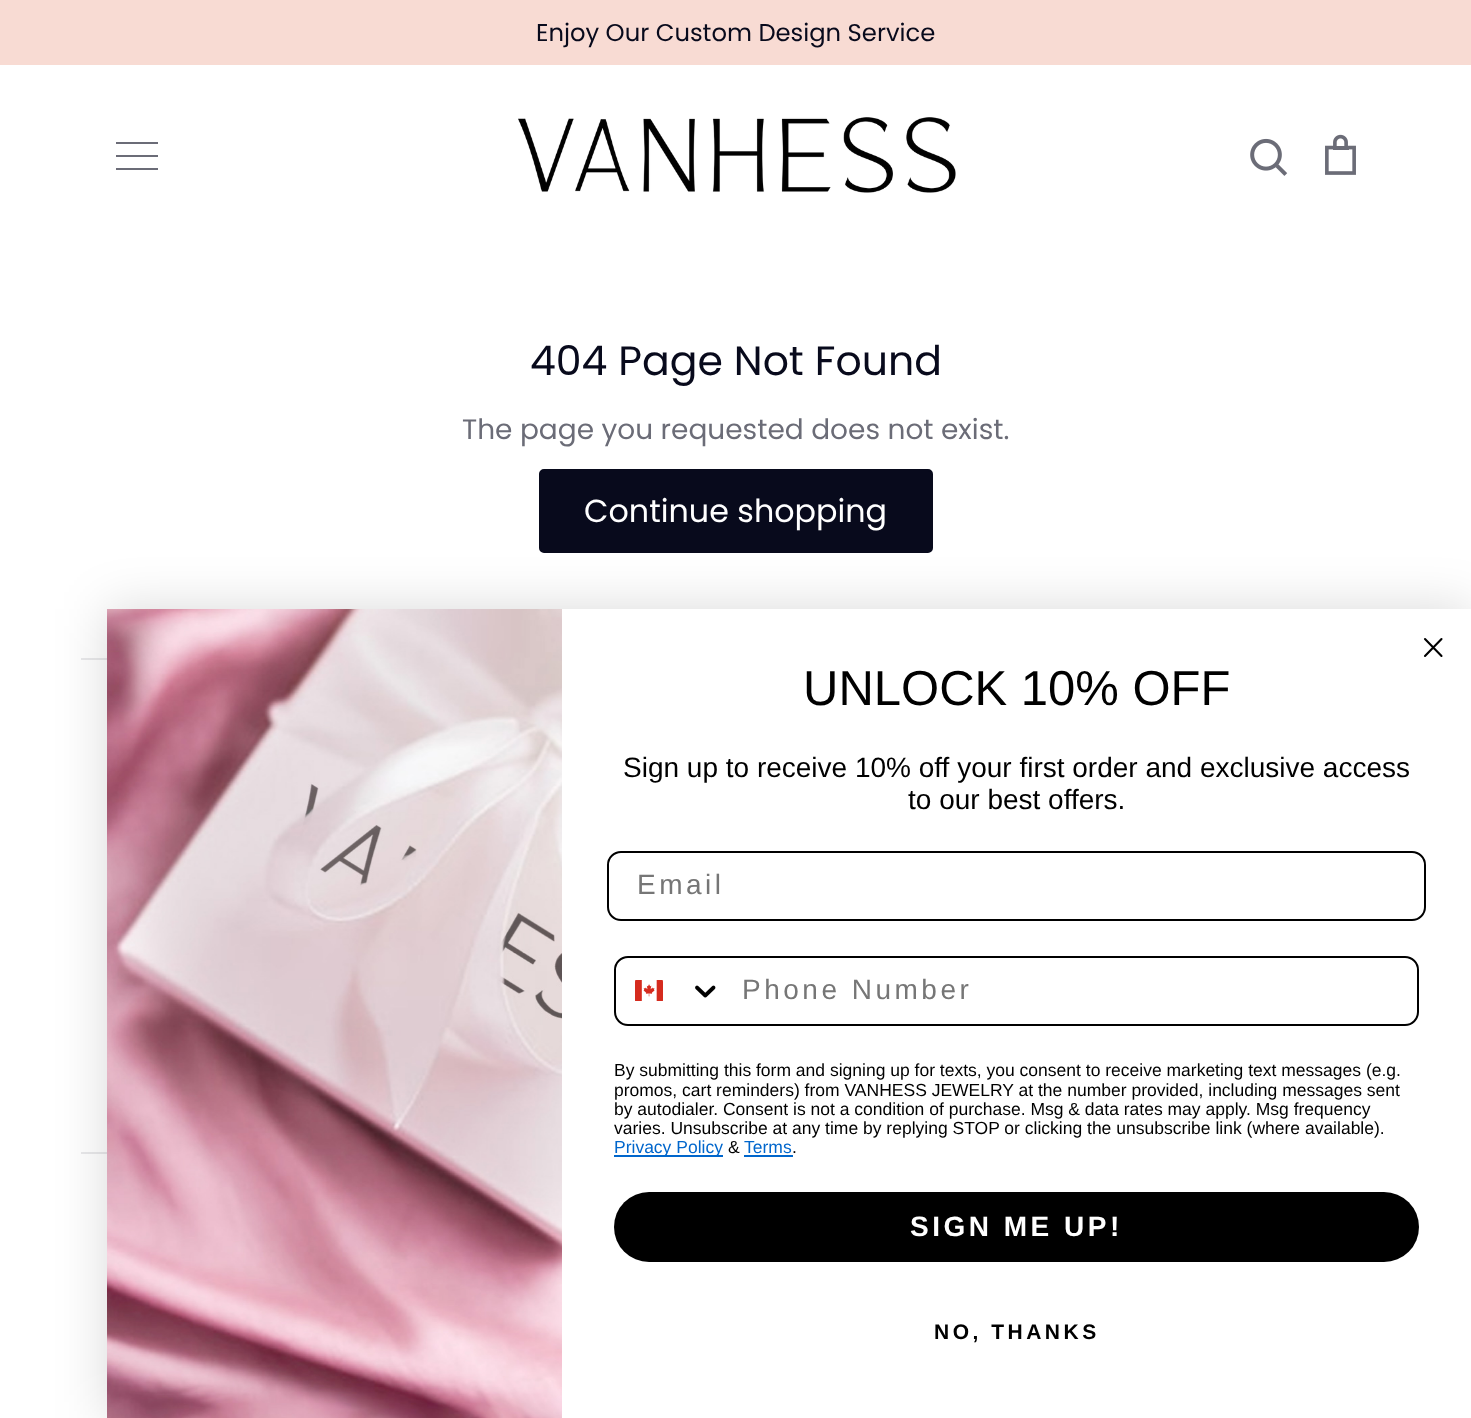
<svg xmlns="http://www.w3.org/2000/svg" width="1471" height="1418">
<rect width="100%" height="100%" fill="#fff"/>
<rect width="1471" height="65" fill="#f8dbd3"/>
<text x="536" y="41" style="font-family:Poppins;font-size:24.25px;fill:#080a1c">Enjoy Our Custom Design Service</text>
<rect x="116" y="142" width="42" height="2" fill="#6b6c77"/>
<rect x="116" y="155" width="42" height="2" fill="#6b6c77"/>
<rect x="116" y="168" width="42" height="2" fill="#6b6c77"/>
<image x="518" y="117" width="438" height="76" href="media/1.png"/>
<image x="1250" y="138" width="38" height="38" href="media/2.png"/>
<image x="1325" y="134" width="31" height="41" href="media/3.png"/>
<text x="530" y="375" style="font-family:Poppins;font-size:41px;fill:#080a1c">404 Page Not Found</text>
<text x="462" y="439" style="font-family:Poppins;font-size:28px;fill:#6b6c77">The page you requested does not exist.</text>
<rect x="540" y="470" width="392" height="82" rx="4" fill="#080a1c" stroke="#080a1c" stroke-width="2"/>
<text x="584" y="522" style="font-family:Poppins;font-size:31.75px;fill:#fff">Continue shopping</text>
<rect x="81" y="658" width="26" height="2" fill="#e9e9eb"/>
<rect x="81" y="1152" width="26" height="2" fill="#e9e9eb"/>
<rect x="107" y="609" width="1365" height="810" fill="#00000026" filter="blur(26px)"/>
<rect x="562" y="609" width="909" height="809" fill="#fff"/>
<path d="M1425 639l16.5 17m-16.5 0l16.5-17z" fill="none" stroke="#000" stroke-width="2.1" stroke-linecap="round" stroke-linejoin="round"/>
<image x="107" y="609" width="455" height="809" href="media/4.png"/>
<text x="803" y="705" style="font-family:Liberation Sans;font-size:49px;fill:#000">UNLOCK 10% OFF</text>
<text x="623" y="777" style="font-family:Liberation Sans;font-size:28px;fill:#000">Sign up to receive 10% off your first order and exclusive access</text>
<text x="908" y="809" style="font-family:Liberation Sans;font-size:28px;fill:#000">to our best offers.</text>
<rect x="608" y="852" width="817" height="68" rx="13" fill="none" stroke="#000" stroke-width="2"/>
<text x="637" y="894" style="font-family:Liberation Sans;font-size:28px;letter-spacing:3.5px;fill:#767676">Email</text>
<rect x="615" y="957" width="803" height="68" rx="13" fill="none" stroke="#000" stroke-width="2"/>
<image x="635" y="980" width="28" height="21" href="media/5.png"/>
<image x="695" y="985" width="21" height="13" href="media/6.png"/>
<text x="742" y="999" style="font-family:Liberation Sans;font-size:28px;letter-spacing:3.5px;fill:#767676">Phone Number</text>
<text x="614" y="1076" style="font-family:Liberation Sans;font-size:17.5px;fill:#000">By submitting this form and signing up for texts, you consent to receive marketing text messages (e.g.</text>
<text x="614" y="1096" style="font-family:Liberation Sans;font-size:17.5px;fill:#000">promos, cart reminders) from VANHESS JEWELRY at the number provided, including messages sent</text>
<text x="614" y="1115" style="font-family:Liberation Sans;font-size:17.5px;fill:#000">by autodialer. Consent is not a condition of purchase. Msg &amp; data rates may apply. Msg frequency</text>
<text x="614" y="1134" style="font-family:Liberation Sans;font-size:17.5px;fill:#000">varies. Unsubscribe at any time by replying STOP or clicking the unsubscribe link (where available).</text>
<rect x="614" y="1155" width="109" height="2" fill="#06c"/>
<text x="614" y="1153" style="font-family:Liberation Sans;font-size:17.5px;fill:#06c">Privacy Policy</text>
<text x="728" y="1153" style="font-family:Liberation Sans;font-size:17.5px;fill:#000">&amp;</text>
<text x="744" y="1153" style="font-family:Liberation Sans;font-size:17.5px;fill:#06c">Terms</text>
<rect x="744" y="1155" width="49" height="2" fill="#06c"/>
<text x="792" y="1153" style="font-family:Liberation Sans;font-size:17.5px;fill:#000">.</text>
<rect x="614" y="1192" width="805" height="70" rx="35" fill="#000"/>
<text x="910" y="1236" style="font-family:Liberation Sans;font-size:28px;font-weight:bold;letter-spacing:3.5px;fill:#fff">SIGN ME UP!</text>
<text x="934" y="1339" style="font-family:Liberation Sans;font-size:21px;font-weight:bold;letter-spacing:3.5px;fill:#000">NO, THANKS</text>
</svg>
